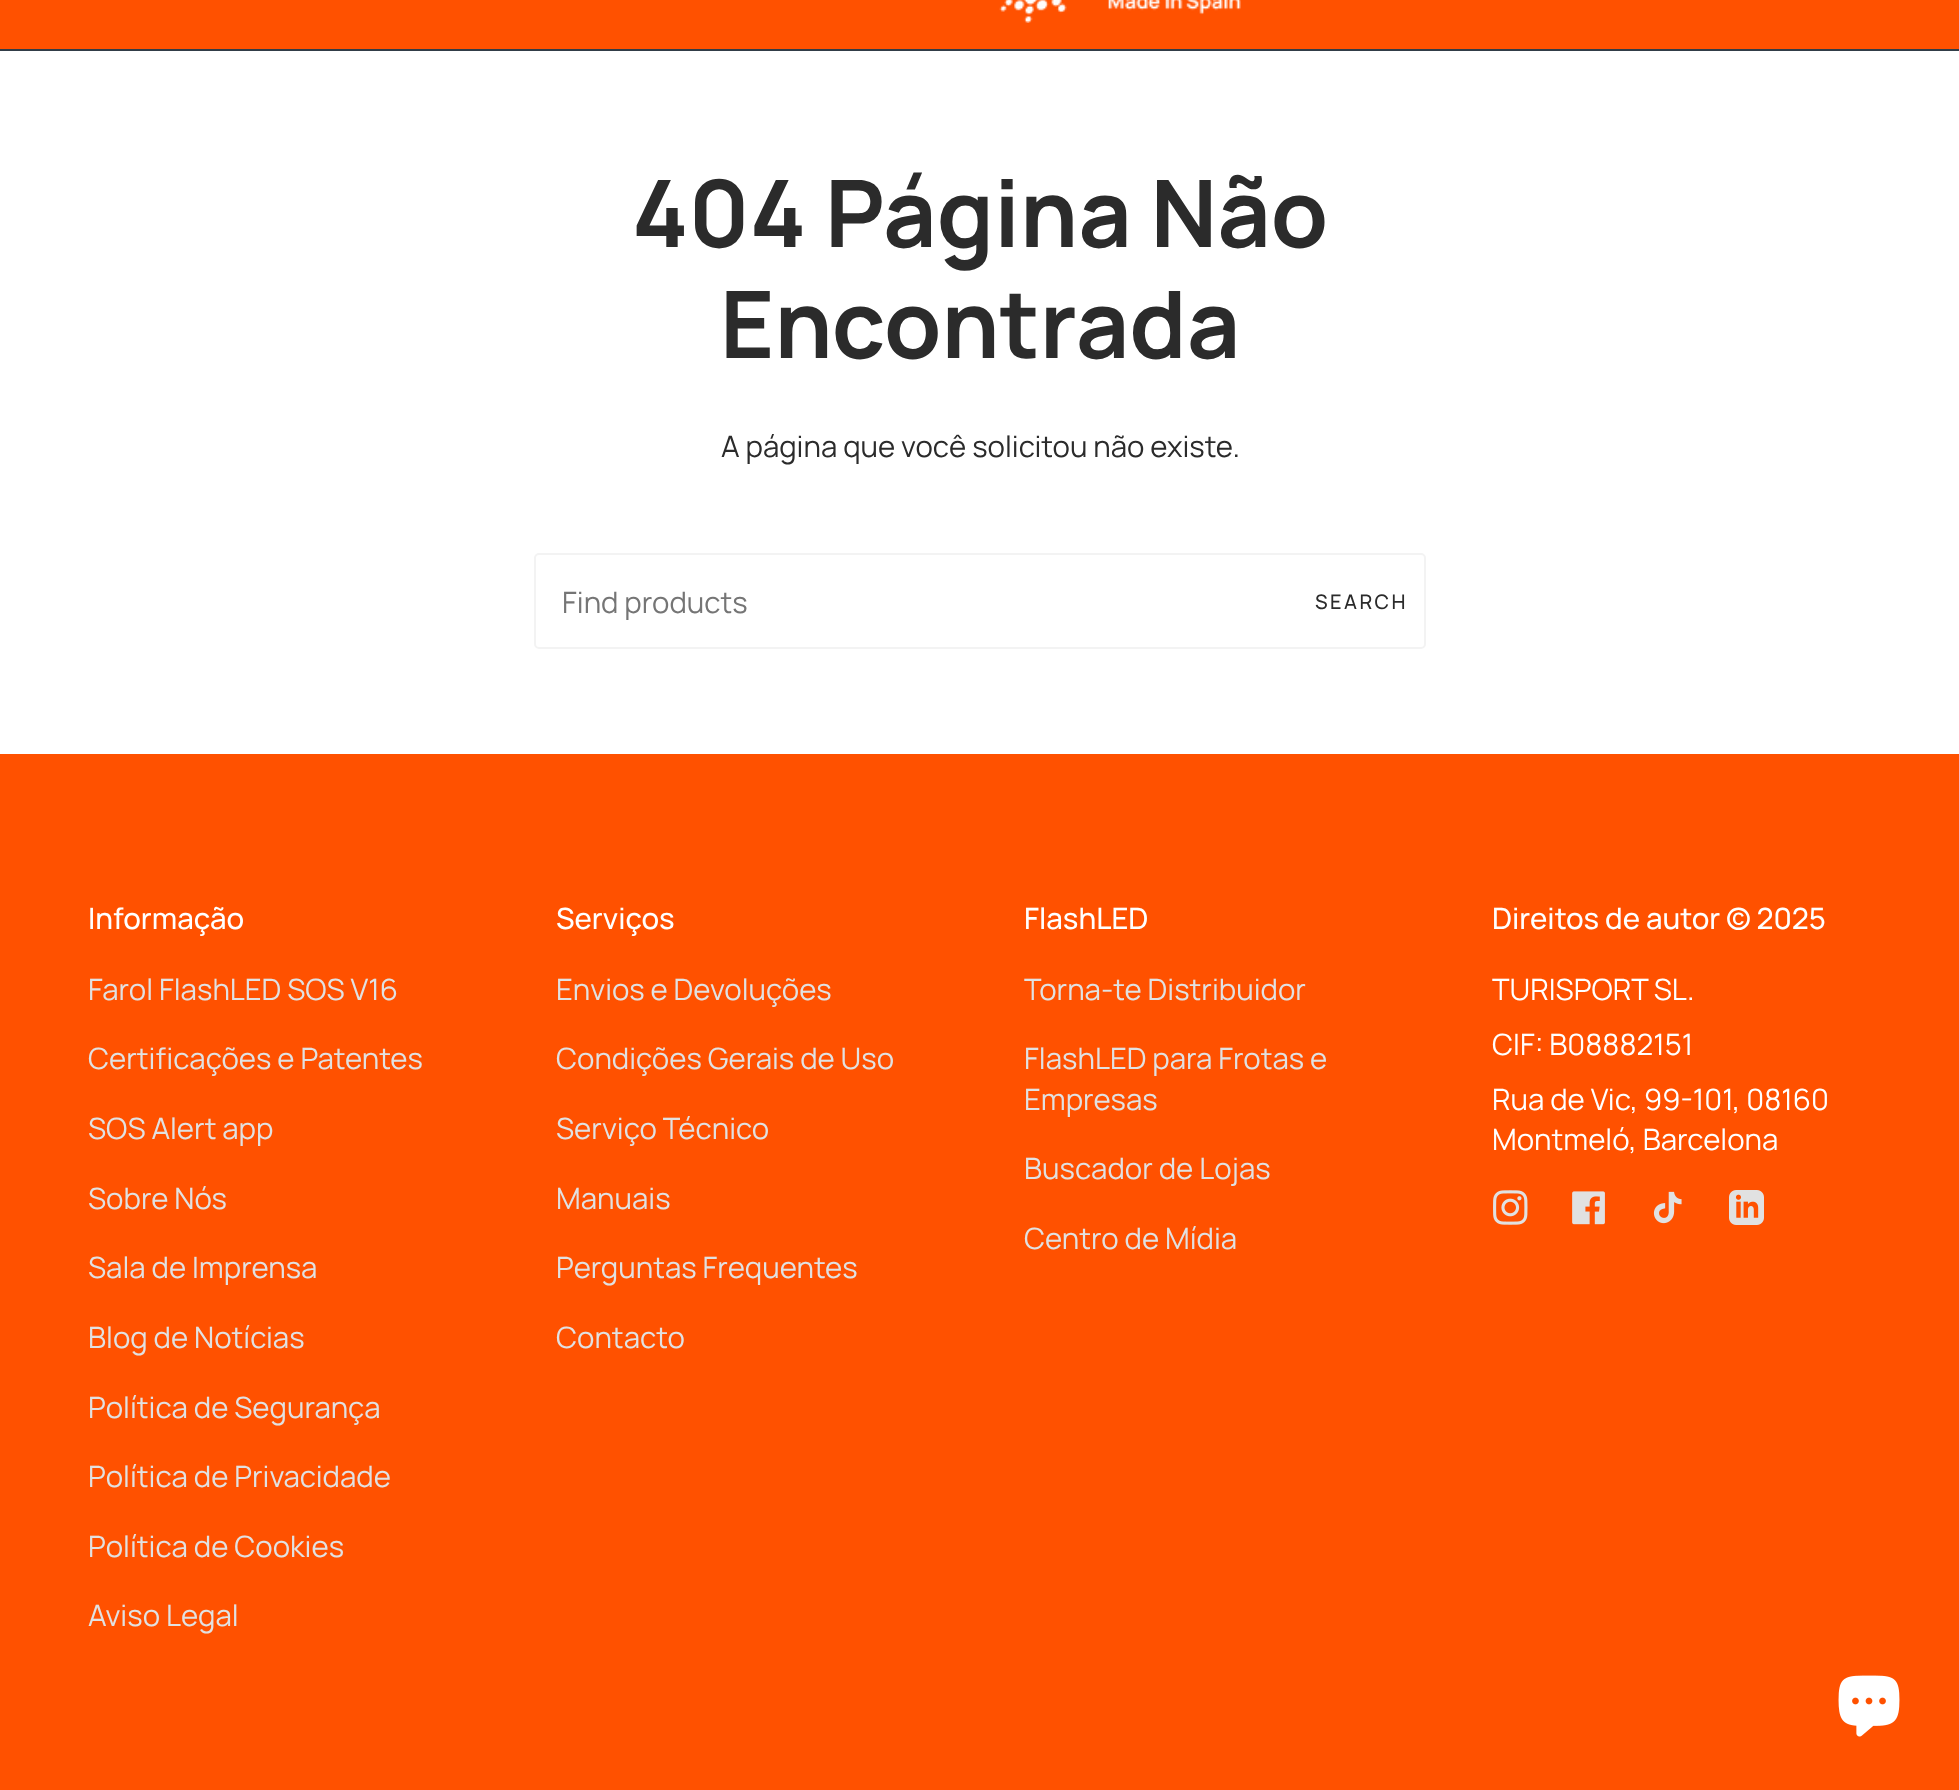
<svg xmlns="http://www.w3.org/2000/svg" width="1959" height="1790">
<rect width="100%" height="100%" fill="#fff"/>
<rect y="49" width="1959" height="2" fill="#313d48"/>
<rect width="1959" height="49" fill="#ff5100"/>
<image x="999" y="0" width="242" height="23" href="media/1.png"/>
<text x="632" y="247" style="font-family:Manrope;font-size:93px;font-weight:bold;fill:#2b2b2b">404 Página Não</text>
<text x="720" y="358" style="font-family:Manrope;font-size:93px;font-weight:bold;fill:#2b2b2b">Encontrada</text>
<text x="721" y="457" style="font-family:Manrope;font-size:29.4px;font-weight:200;fill:#2b2b2b">A página que você solicitou não existe.</text>
<rect x="535" y="554" width="890" height="94" rx="4" fill="none" stroke="#f3f3f3" stroke-width="2"/>
<text x="562" y="613" style="font-family:Manrope;font-size:29.4px;font-weight:200;fill:#757575">Find products</text>
<text x="1315" y="609" style="font-family:Manrope;font-size:20px;font-weight:500;letter-spacing:2.5px;fill:#2b2b2b">SEARCH</text>
<rect y="754" width="1959" height="1036" fill="#ff5100"/>
<text x="88" y="929" style="font-family:Manrope;font-size:29.4px;font-weight:500;fill:#fff">Informação</text>
<text x="88" y="1000" style="font-family:Manrope;font-size:29.4px;font-weight:200;fill:#e1e1e1">Farol FlashLED SOS V16</text>
<text x="88" y="1069" style="font-family:Manrope;font-size:29.4px;font-weight:200;fill:#e1e1e1">Certificações e Patentes</text>
<text x="88" y="1139" style="font-family:Manrope;font-size:29.4px;font-weight:200;fill:#e1e1e1">SOS Alert app</text>
<text x="88" y="1209" style="font-family:Manrope;font-size:29.4px;font-weight:200;fill:#e1e1e1">Sobre Nós</text>
<text x="88" y="1278" style="font-family:Manrope;font-size:29.4px;font-weight:200;fill:#e1e1e1">Sala de Imprensa</text>
<text x="88" y="1348" style="font-family:Manrope;font-size:29.4px;font-weight:200;fill:#e1e1e1">Blog de Notícias</text>
<text x="88" y="1418" style="font-family:Manrope;font-size:29.4px;font-weight:200;fill:#e1e1e1">Política de Segurança</text>
<text x="88" y="1487" style="font-family:Manrope;font-size:29.4px;font-weight:200;fill:#e1e1e1">Política de Privacidade</text>
<text x="88" y="1557" style="font-family:Manrope;font-size:29.4px;font-weight:200;fill:#e1e1e1">Política de Cookies</text>
<text x="88" y="1626" style="font-family:Manrope;font-size:29.4px;font-weight:200;fill:#e1e1e1">Aviso Legal</text>
<text x="556" y="929" style="font-family:Manrope;font-size:29.4px;font-weight:500;fill:#fff">Serviços</text>
<text x="556" y="1000" style="font-family:Manrope;font-size:29.4px;font-weight:200;fill:#e1e1e1">Envios e Devoluções</text>
<text x="556" y="1069" style="font-family:Manrope;font-size:29.4px;font-weight:200;fill:#e1e1e1">Condições Gerais de Uso</text>
<text x="556" y="1139" style="font-family:Manrope;font-size:29.4px;font-weight:200;fill:#e1e1e1">Serviço Técnico</text>
<text x="556" y="1209" style="font-family:Manrope;font-size:29.4px;font-weight:200;fill:#e1e1e1">Manuais</text>
<text x="556" y="1278" style="font-family:Manrope;font-size:29.4px;font-weight:200;fill:#e1e1e1">Perguntas Frequentes</text>
<text x="556" y="1348" style="font-family:Manrope;font-size:29.4px;font-weight:200;fill:#e1e1e1">Contacto</text>
<text x="1024" y="929" style="font-family:Manrope;font-size:29.4px;font-weight:500;fill:#fff">FlashLED</text>
<text x="1024" y="1000" style="font-family:Manrope;font-size:29.4px;font-weight:200;fill:#e1e1e1">Torna-te Distribuidor</text>
<text x="1024" y="1069" style="font-family:Manrope;font-size:29.4px;font-weight:200;fill:#e1e1e1">FlashLED para Frotas e</text>
<text x="1024" y="1110" style="font-family:Manrope;font-size:29.4px;font-weight:200;fill:#e1e1e1">Empresas</text>
<text x="1024" y="1179" style="font-family:Manrope;font-size:29.4px;font-weight:200;fill:#e1e1e1">Buscador de Lojas</text>
<text x="1024" y="1249" style="font-family:Manrope;font-size:29.4px;font-weight:200;fill:#e1e1e1">Centro de Mídia</text>
<text x="1492" y="929" style="font-family:Manrope;font-size:29.4px;font-weight:500;fill:#fff">Direitos de autor © 2025</text>
<text x="1492" y="1000" style="font-family:Manrope;font-size:29.4px;font-weight:200;fill:#fff">TURISPORT SL.</text>
<text x="1492" y="1055" style="font-family:Manrope;font-size:29.4px;font-weight:200;fill:#fff">CIF: B08882151</text>
<text x="1492" y="1110" style="font-family:Manrope;font-size:29.4px;font-weight:200;fill:#fff">Rua de Vic, 99-101, 08160</text>
<text x="1492" y="1150" style="font-family:Manrope;font-size:29.4px;font-weight:200;fill:#fff">Montmeló, Barcelona</text>
<image x="1493" y="1190" width="35" height="35" href="media/2.png"/>
<image x="1572" y="1191" width="33" height="34" href="media/3.png"/>
<image x="1653" y="1191" width="29" height="33" href="media/4.png"/>
<image x="1729" y="1190" width="35" height="35" href="media/5.png"/>
<image x="1838" y="1675" width="62" height="62" href="media/6.png"/>
</svg>
